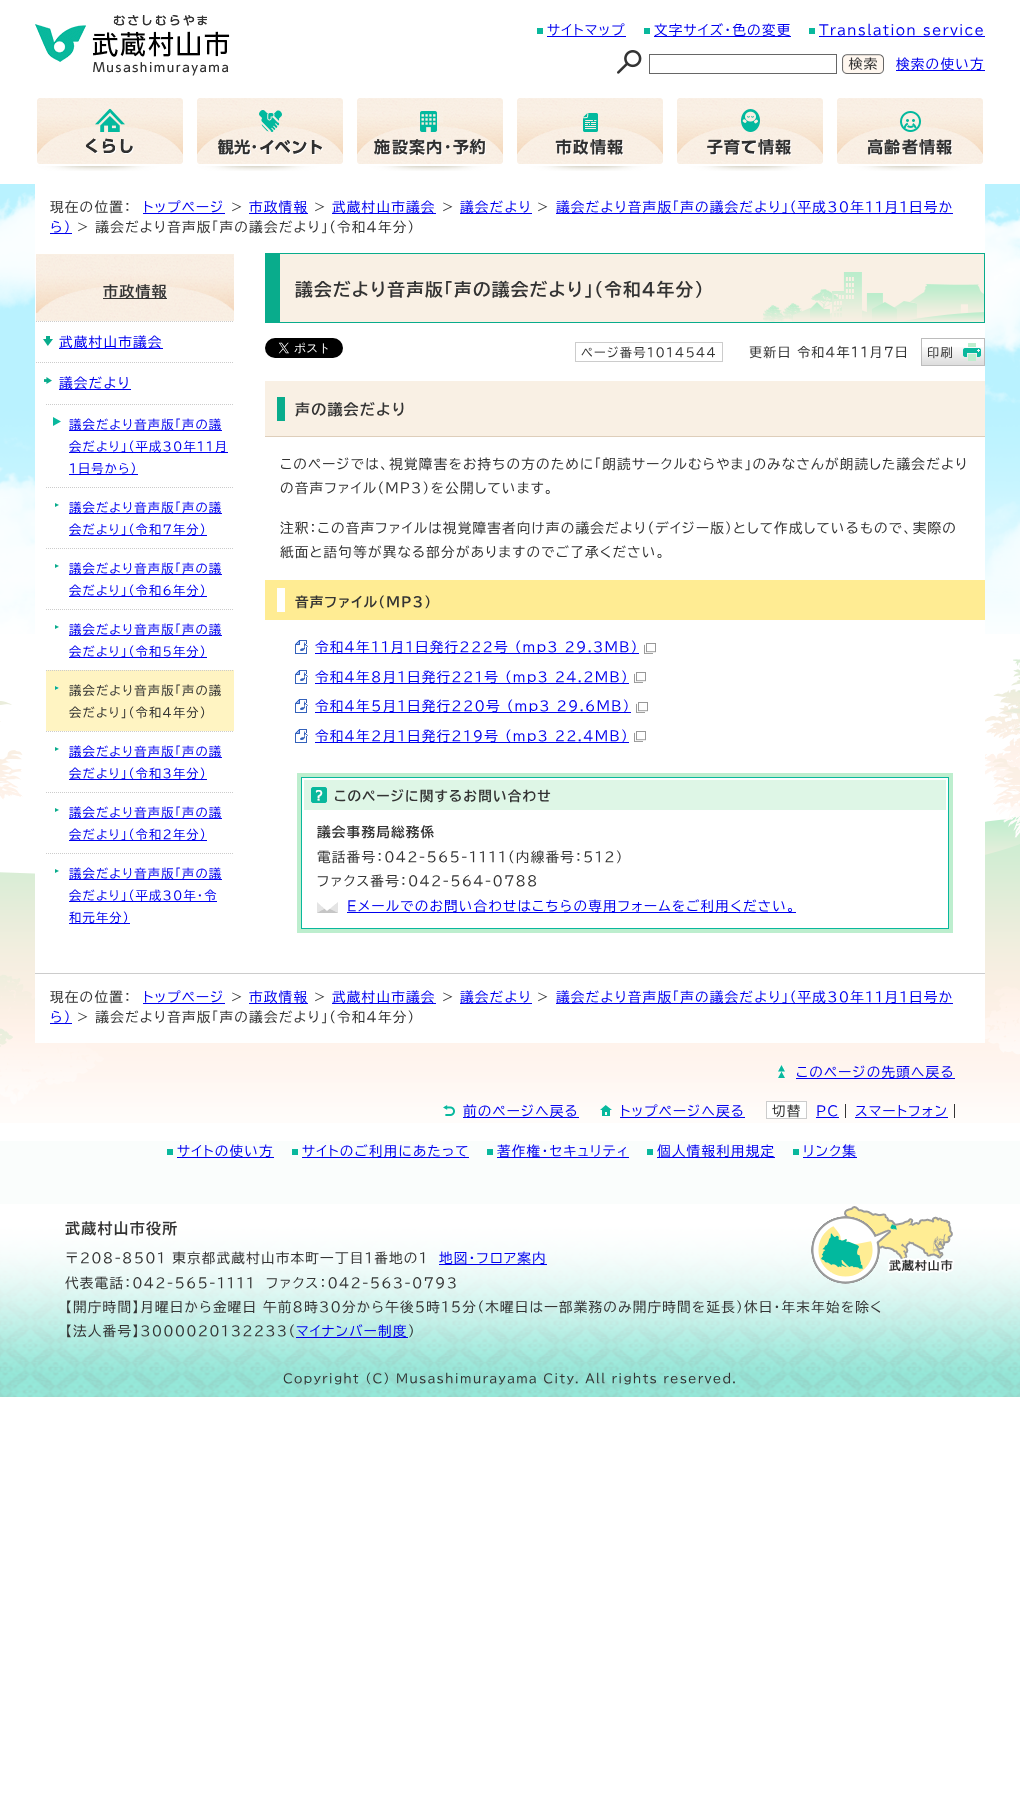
<svg xmlns="http://www.w3.org/2000/svg" width="1020" height="1794">
<rect width="100%" height="100%" fill="#fff"/>
<image x="0" y="184" width="1020" height="450" href="media/1.png"/>
<image x="35" y="15" width="195" height="61" href="media/2.png"/>
<rect x="537" y="28" width="6" height="6" fill="#09b89d"/>
<text x="547" y="35" style="font-family:BIZ UDPGothic;font-size:13.6px;letter-spacing:1.2px;fill:#00e">サイトマップ</text>
<rect x="547" y="36" width="79" height="1" fill="#00e"/>
<rect x="644" y="28" width="6" height="6" fill="#09b89d"/>
<rect x="654" y="36" width="137" height="1" fill="#00e"/>
<text x="654" y="35" style="font-family:BIZ UDPGothic;font-size:13.6px;letter-spacing:1.2px;fill:#00e">文字サイズ・色の変更</text>
<rect x="809" y="28" width="6" height="6" fill="#09b89d"/>
<text x="819" y="35" style="font-family:BIZ UDPGothic;font-size:13.6px;letter-spacing:1.2px;fill:#00e">Translation service</text>
<rect x="819" y="36" width="166" height="1" fill="#00e"/>
<image x="617" y="50" width="25" height="24" href="media/3.png"/>
<rect x="649.5" y="54.5" width="187" height="19" fill="none" stroke="#666"/>
<image x="842" y="54" width="42" height="20" href="media/4.png"/>
<rect x="896" y="70" width="89" height="1" fill="#00e"/>
<text x="896" y="69" style="font-family:BIZ UDPGothic;font-size:13.6px;letter-spacing:1.2px;fill:#00e">検索の使い方</text>
<image x="37" y="98" width="146" height="73" href="media/5.png"/>
<image x="197" y="98" width="146" height="73" href="media/6.png"/>
<image x="357" y="98" width="146" height="73" href="media/7.png"/>
<image x="517" y="98" width="146" height="73" href="media/8.png"/>
<image x="677" y="98" width="146" height="73" href="media/9.png"/>
<image x="837" y="98" width="146" height="73" href="media/10.png"/>
<image x="0" y="659" width="1020" height="464" href="media/11.png"/>
<rect x="35" y="184" width="950" height="789" fill="#fff"/>
<text x="50" y="212" style="font-family:BIZ UDPGothic;font-size:13.6px;letter-spacing:1.2px;fill:#333">現在の位置：</text>
<text x="143" y="212" style="font-family:BIZ UDPGothic;font-size:13.6px;letter-spacing:1.2px;fill:#00e">トップページ</text>
<rect x="143" y="213" width="82" height="1" fill="#00e"/>
<text x="231" y="212" style="font-family:BIZ UDPGothic;font-size:13.6px;letter-spacing:1.2px;fill:#333">&gt;</text>
<rect x="249" y="213" width="59" height="1" fill="#00e"/>
<text x="249" y="212" style="font-family:BIZ UDPGothic;font-size:13.6px;letter-spacing:1.2px;fill:#00e">市政情報</text>
<text x="314" y="212" style="font-family:BIZ UDPGothic;font-size:13.6px;letter-spacing:1.2px;fill:#333">&gt;</text>
<rect x="332" y="213" width="104" height="1" fill="#00e"/>
<text x="332" y="212" style="font-family:BIZ UDPGothic;font-size:13.6px;letter-spacing:1.2px;fill:#00e">武蔵村山市議会</text>
<text x="442" y="212" style="font-family:BIZ UDPGothic;font-size:13.6px;letter-spacing:1.2px;fill:#333">&gt;</text>
<rect x="460" y="213" width="72" height="1" fill="#00e"/>
<text x="460" y="212" style="font-family:BIZ UDPGothic;font-size:13.6px;letter-spacing:1.2px;fill:#00e">議会だより</text>
<text x="537" y="212" style="font-family:BIZ UDPGothic;font-size:13.6px;letter-spacing:1.2px;fill:#333">&gt;</text>
<rect x="556" y="213" width="397" height="1" fill="#00e"/>
<text x="556" y="212" style="font-family:BIZ UDPGothic;font-size:13.6px;letter-spacing:1.2px;fill:#00e">議会だより音声版「声の議会だより」（平成30年11月1日号か</text>
<rect x="50" y="233" width="22" height="1" fill="#00e"/>
<text x="50" y="232" style="font-family:BIZ UDPGothic;font-size:13.6px;letter-spacing:1.2px;fill:#00e">ら）</text>
<text x="77" y="232" style="font-family:BIZ UDPGothic;font-size:13.6px;letter-spacing:1.2px;fill:#333">&gt; 議会だより音声版「声の議会だより」（令和4年分）</text>
<rect x="36" y="254" width="198" height="67" fill="#f9efe3"/>
<image x="36" y="255" width="198" height="65" href="media/12.png"/>
<rect x="103" y="298" width="64" height="1" fill="#333"/>
<text x="103" y="297" style="font-family:BIZ UDPGothic;font-size:15px;font-weight:bold;letter-spacing:1.2px;fill:#333">市政情報</text>
<image x="43" y="336" width="10" height="10" href="media/13.png"/>
<path d="M36 321.5h198" fill="none" stroke="#ccc" stroke-dasharray="1 1"/>
<rect x="59" y="348" width="104" height="1" fill="#00e"/>
<text x="59" y="347" style="font-family:BIZ UDPGothic;font-size:13.6px;letter-spacing:1.2px;fill:#00e">武蔵村山市議会</text>
<image x="44" y="377" width="8" height="7" href="media/14.png"/>
<path d="M36 362.5h198" fill="none" stroke="#ccc" stroke-dasharray="1 1"/>
<rect x="59" y="389" width="72" height="1" fill="#00e"/>
<text x="59" y="388" style="font-family:BIZ UDPGothic;font-size:13.6px;letter-spacing:1.2px;fill:#00e">議会だより</text>
<image x="53" y="417" width="8" height="9" href="media/15.png"/>
<path d="M46 404.5h188" fill="none" stroke="#ccc" stroke-dasharray="1 1"/>
<rect x="69" y="430" width="153" height="1" fill="#00e"/>
<text x="69" y="429" style="font-family:BIZ UDPGothic;font-size:12.25px;letter-spacing:1.2px;fill:#00e">議会だより音声版「声の議</text>
<rect x="69" y="452" width="159" height="1" fill="#00e"/>
<text x="69" y="451" style="font-family:BIZ UDPGothic;font-size:12.25px;letter-spacing:1.2px;fill:#00e">会だより」（平成30年11月</text>
<rect x="69" y="474" width="69" height="1" fill="#00e"/>
<text x="69" y="473" style="font-family:BIZ UDPGothic;font-size:12.25px;letter-spacing:1.2px;fill:#00e">1日号から）</text>
<image x="55" y="503" width="4" height="4" href="media/16.png"/>
<path d="M46 487.5h188" fill="none" stroke="#ccc" stroke-dasharray="1 1"/>
<rect x="69" y="513" width="153" height="1" fill="#00e"/>
<text x="69" y="512" style="font-family:BIZ UDPGothic;font-size:12.25px;letter-spacing:1.2px;fill:#00e">議会だより音声版「声の議</text>
<rect x="69" y="535" width="138" height="1" fill="#00e"/>
<text x="69" y="534" style="font-family:BIZ UDPGothic;font-size:12.25px;letter-spacing:1.2px;fill:#00e">会だより」（令和7年分）</text>
<image x="55" y="564" width="4" height="4" href="media/16.png"/>
<path d="M46 548.5h188" fill="none" stroke="#ccc" stroke-dasharray="1 1"/>
<rect x="69" y="574" width="153" height="1" fill="#00e"/>
<text x="69" y="573" style="font-family:BIZ UDPGothic;font-size:12.25px;letter-spacing:1.2px;fill:#00e">議会だより音声版「声の議</text>
<rect x="69" y="596" width="138" height="1" fill="#00e"/>
<text x="69" y="595" style="font-family:BIZ UDPGothic;font-size:12.25px;letter-spacing:1.2px;fill:#00e">会だより」（令和6年分）</text>
<image x="55" y="625" width="4" height="4" href="media/16.png"/>
<path d="M46 609.5h188" fill="none" stroke="#ccc" stroke-dasharray="1 1"/>
<rect x="69" y="635" width="153" height="1" fill="#00e"/>
<text x="69" y="634" style="font-family:BIZ UDPGothic;font-size:12.25px;letter-spacing:1.2px;fill:#00e">議会だより音声版「声の議</text>
<rect x="69" y="657" width="138" height="1" fill="#00e"/>
<text x="69" y="656" style="font-family:BIZ UDPGothic;font-size:12.25px;letter-spacing:1.2px;fill:#00e">会だより」（令和5年分）</text>
<rect x="46" y="670" width="188" height="61" fill="#fff4c2"/>
<image x="55" y="686" width="4" height="4" href="media/17.png"/>
<path d="M46 670.5h188" fill="none" stroke="#ccc" stroke-dasharray="1 1"/>
<text x="69" y="695" style="font-family:BIZ UDPGothic;font-size:12.25px;letter-spacing:1.2px;fill:#333">議会だより音声版「声の議</text>
<text x="69" y="717" style="font-family:BIZ UDPGothic;font-size:12.25px;letter-spacing:1.2px;fill:#333">会だより」（令和4年分）</text>
<image x="55" y="747" width="4" height="4" href="media/16.png"/>
<path d="M46 731.5h188" fill="none" stroke="#ccc" stroke-dasharray="1 1"/>
<rect x="69" y="757" width="153" height="1" fill="#00e"/>
<text x="69" y="756" style="font-family:BIZ UDPGothic;font-size:12.25px;letter-spacing:1.2px;fill:#00e">議会だより音声版「声の議</text>
<rect x="69" y="779" width="138" height="1" fill="#00e"/>
<text x="69" y="778" style="font-family:BIZ UDPGothic;font-size:12.25px;letter-spacing:1.2px;fill:#00e">会だより」（令和3年分）</text>
<image x="55" y="808" width="4" height="4" href="media/16.png"/>
<path d="M46 792.5h188" fill="none" stroke="#ccc" stroke-dasharray="1 1"/>
<rect x="69" y="818" width="153" height="1" fill="#00e"/>
<text x="69" y="817" style="font-family:BIZ UDPGothic;font-size:12.25px;letter-spacing:1.2px;fill:#00e">議会だより音声版「声の議</text>
<rect x="69" y="840" width="138" height="1" fill="#00e"/>
<text x="69" y="839" style="font-family:BIZ UDPGothic;font-size:12.25px;letter-spacing:1.2px;fill:#00e">会だより」（令和2年分）</text>
<image x="55" y="869" width="4" height="4" href="media/16.png"/>
<path d="M46 853.5h188" fill="none" stroke="#ccc" stroke-dasharray="1 1"/>
<rect x="69" y="879" width="153" height="1" fill="#00e"/>
<text x="69" y="878" style="font-family:BIZ UDPGothic;font-size:12.25px;letter-spacing:1.2px;fill:#00e">議会だより音声版「声の議</text>
<rect x="69" y="901" width="148" height="1" fill="#00e"/>
<text x="69" y="900" style="font-family:BIZ UDPGothic;font-size:12.25px;letter-spacing:1.2px;fill:#00e">会だより」（平成30年・令</text>
<rect x="69" y="923" width="61" height="1" fill="#00e"/>
<text x="69" y="922" style="font-family:BIZ UDPGothic;font-size:12.25px;letter-spacing:1.2px;fill:#00e">和元年分）</text>
<rect x="280" y="254" width="704" height="68" fill="#f9f0e4"/>
<image x="763" y="272" width="221" height="50" href="media/18.png"/>
<rect x="280" y="253" width="705" height="1" fill="#09ac8c"/>
<rect x="984" y="253" width="1" height="70" fill="#09ac8c"/>
<rect x="280" y="322" width="705" height="1" fill="#09ac8c"/>
<rect x="265" y="253" width="15" height="70" fill="#09ac8c"/>
<text x="295" y="296" style="font-family:BIZ UDPGothic;font-size:17.7px;font-weight:bold;letter-spacing:1.2px;fill:#333">議会だより音声版「声の議会だより」（令和4年分）</text>
<image x="265" y="338" width="78" height="20" href="media/19.png"/>
<rect x="575.5" y="342.5" width="147" height="19" fill="none" stroke="#ccc"/>
<text x="581" y="357" style="font-family:BIZ UDPGothic;font-size:12.25px;letter-spacing:1.2px;fill:#333">ページ番号1014544</text>
<text x="749" y="357" style="font-family:BIZ UDPGothic;font-size:13px;letter-spacing:1.2px;fill:#333">更新日 令和4年11月7日</text>
<image x="922" y="347" width="62" height="18" href="media/20.png"/>
<rect x="921.5" y="338.5" width="63" height="27" fill="none" stroke="#bcbcbc"/>
<image x="963" y="343" width="18" height="18" href="media/21.png"/>
<text x="927" y="357" style="font-family:BIZ UDPGothic;font-size:12.25px;letter-spacing:1.2px;fill:#333">印刷</text>
<rect x="265" y="381" width="720" height="55" fill="#f9f0e4"/>
<rect x="277" y="397" width="8" height="24" fill="#09ac8c"/>
<rect x="265" y="436" width="720" height="1" fill="#deceba"/>
<text x="295" y="415" style="font-family:BIZ UDPGothic;font-size:15px;font-weight:bold;letter-spacing:1.2px;fill:#333">声の議会だより</text>
<text x="280" y="469" style="font-family:BIZ UDPGothic;font-size:13.6px;letter-spacing:1.2px;fill:#333">このページでは、視覚障害をお持ちの方のために「朗読サークルむらやま」のみなさんが朗読した議会だより</text>
<text x="280" y="493" style="font-family:BIZ UDPGothic;font-size:13.6px;letter-spacing:1.2px;fill:#333">の音声ファイル（MP3）を公開しています。</text>
<text x="280" y="533" style="font-family:BIZ UDPGothic;font-size:13.6px;letter-spacing:1.2px;fill:#333">注釈：この音声ファイルは視覚障害者向け声の議会だより（デイジー版）として作成しているもので、実際の</text>
<text x="280" y="557" style="font-family:BIZ UDPGothic;font-size:13.6px;letter-spacing:1.2px;fill:#333">紙面と語句等が異なる部分がありますのでご了承ください。</text>
<rect x="265" y="580" width="720" height="40" fill="#ffec93"/>
<rect x="277" y="588" width="8" height="24" fill="#fff"/>
<text x="295" y="607" style="font-family:BIZ UDPGothic;font-size:13.6px;font-weight:bold;letter-spacing:1.2px;fill:#333">音声ファイル（MP3）</text>
<image x="295" y="640" width="13" height="14" href="media/22.png"/>
<rect x="315" y="653" width="324" height="1" fill="#00e"/>
<text x="315" y="652" style="font-family:BIZ UDPGothic;font-size:13.6px;letter-spacing:1.2px;fill:#00e">令和4年11月1日発行222号 （mp3 29.3MB）</text>
<image x="644" y="643" width="12" height="11" href="media/23.png"/>
<image x="295" y="670" width="13" height="14" href="media/22.png"/>
<rect x="315" y="683" width="314" height="1" fill="#00e"/>
<text x="315" y="682" style="font-family:BIZ UDPGothic;font-size:13.6px;letter-spacing:1.2px;fill:#00e">令和4年8月1日発行221号 （mp3 24.2MB）</text>
<image x="634" y="672" width="12" height="11" href="media/23.png"/>
<image x="295" y="699" width="13" height="14" href="media/22.png"/>
<rect x="315" y="712" width="316" height="1" fill="#00e"/>
<text x="315" y="711" style="font-family:BIZ UDPGothic;font-size:13.6px;letter-spacing:1.2px;fill:#00e">令和4年5月1日発行220号 （mp3 29.6MB）</text>
<image x="636" y="702" width="12" height="11" href="media/23.png"/>
<image x="295" y="729" width="13" height="14" href="media/22.png"/>
<rect x="315" y="742" width="314" height="1" fill="#00e"/>
<text x="315" y="741" style="font-family:BIZ UDPGothic;font-size:13.6px;letter-spacing:1.2px;fill:#00e">令和4年2月1日発行219号 （mp3 22.4MB）</text>
<image x="634" y="731" width="12" height="11" href="media/23.png"/>
<rect x="299" y="775" width="652" height="156" fill="#09b89d" stroke="#bdeece" stroke-width="4"/>
<rect x="304" y="780" width="642" height="30" fill="#def6e6"/>
<image x="311" y="787" width="16" height="16" href="media/24.png"/>
<rect x="302" y="778" width="646" height="2" fill="#fff"/>
<rect x="946" y="778" width="2" height="32" fill="#fff"/>
<rect x="302" y="778" width="2" height="32" fill="#fff"/>
<text x="334" y="801" style="font-family:BIZ UDPGothic;font-size:13.6px;font-weight:bold;letter-spacing:1.2px;fill:#333">このページに関するお問い合わせ</text>
<rect x="302" y="810" width="646" height="118" fill="#fff"/>
<text x="317" y="837" style="font-family:BIZ UDPGothic;font-size:13.6px;font-weight:bold;letter-spacing:1.2px;fill:#333">議会事務局総務係</text>
<text x="317" y="862" style="font-family:BIZ UDPGothic;font-size:13.6px;letter-spacing:1.2px;fill:#333">電話番号：042-565-1111（内線番号：512）</text>
<text x="317" y="886" style="font-family:BIZ UDPGothic;font-size:13.6px;letter-spacing:1.2px;fill:#333">ファクス番号：042-564-0788</text>
<image x="317" y="902" width="21" height="11" href="media/25.png"/>
<rect x="347" y="912" width="449" height="1" fill="#00e"/>
<text x="347" y="911" style="font-family:BIZ UDPGothic;font-size:13.6px;letter-spacing:1.2px;fill:#00e">Eメールでのお問い合わせはこちらの専用フォームをご利用ください。</text>
<rect x="35" y="974" width="950" height="69" fill="#fff"/>
<rect x="35" y="973" width="950" height="1" fill="#ccc"/>
<text x="50" y="1002" style="font-family:BIZ UDPGothic;font-size:13.6px;letter-spacing:1.2px;fill:#333">現在の位置：</text>
<text x="143" y="1002" style="font-family:BIZ UDPGothic;font-size:13.6px;letter-spacing:1.2px;fill:#00e">トップページ</text>
<rect x="143" y="1003" width="82" height="1" fill="#00e"/>
<text x="231" y="1002" style="font-family:BIZ UDPGothic;font-size:13.6px;letter-spacing:1.2px;fill:#333">&gt;</text>
<rect x="249" y="1003" width="59" height="1" fill="#00e"/>
<text x="249" y="1002" style="font-family:BIZ UDPGothic;font-size:13.6px;letter-spacing:1.2px;fill:#00e">市政情報</text>
<text x="314" y="1002" style="font-family:BIZ UDPGothic;font-size:13.6px;letter-spacing:1.2px;fill:#333">&gt;</text>
<rect x="332" y="1003" width="104" height="1" fill="#00e"/>
<text x="332" y="1002" style="font-family:BIZ UDPGothic;font-size:13.6px;letter-spacing:1.2px;fill:#00e">武蔵村山市議会</text>
<text x="442" y="1002" style="font-family:BIZ UDPGothic;font-size:13.6px;letter-spacing:1.2px;fill:#333">&gt;</text>
<rect x="460" y="1003" width="72" height="1" fill="#00e"/>
<text x="460" y="1002" style="font-family:BIZ UDPGothic;font-size:13.6px;letter-spacing:1.2px;fill:#00e">議会だより</text>
<text x="537" y="1002" style="font-family:BIZ UDPGothic;font-size:13.6px;letter-spacing:1.2px;fill:#333">&gt;</text>
<rect x="556" y="1003" width="397" height="1" fill="#00e"/>
<text x="556" y="1002" style="font-family:BIZ UDPGothic;font-size:13.6px;letter-spacing:1.2px;fill:#00e">議会だより音声版「声の議会だより」（平成30年11月1日号か</text>
<rect x="50" y="1023" width="22" height="1" fill="#00e"/>
<text x="50" y="1022" style="font-family:BIZ UDPGothic;font-size:13.6px;letter-spacing:1.2px;fill:#00e">ら）</text>
<text x="77" y="1022" style="font-family:BIZ UDPGothic;font-size:13.6px;letter-spacing:1.2px;fill:#333">&gt; 議会だより音声版「声の議会だより」（令和4年分）</text>
<image x="778" y="1065" width="7" height="13" href="media/26.png"/>
<rect x="796" y="1078" width="159" height="1" fill="#00e"/>
<text x="796" y="1077" style="font-family:BIZ UDPGothic;font-size:13.6px;letter-spacing:1.2px;fill:#00e">このページの先頭へ戻る</text>
<image x="443" y="1105" width="12" height="11" href="media/27.png"/>
<rect x="463" y="1117" width="116" height="1" fill="#00e"/>
<text x="463" y="1116" style="font-family:BIZ UDPGothic;font-size:13.6px;letter-spacing:1.2px;fill:#00e">前のページへ戻る</text>
<image x="600" y="1105" width="12" height="11" href="media/28.png"/>
<rect x="620" y="1117" width="125" height="1" fill="#00e"/>
<text x="620" y="1116" style="font-family:BIZ UDPGothic;font-size:13.6px;letter-spacing:1.2px;fill:#00e">トップページへ戻る</text>
<rect x="766.5" y="1101.5" width="40" height="17" fill="#fff" stroke="#ccc"/>
<text x="772" y="1116" style="font-family:BIZ UDPGothic;font-size:13.6px;letter-spacing:1.2px;fill:#333">切替</text>
<text x="816" y="1116" style="font-family:BIZ UDPGothic;font-size:13.6px;letter-spacing:1.2px;fill:#00e">PC</text>
<rect x="845" y="1104" width="1" height="14" fill="#333"/>
<rect x="816" y="1117" width="23" height="1" fill="#00e"/>
<text x="855" y="1116" style="font-family:BIZ UDPGothic;font-size:13.6px;letter-spacing:1.2px;fill:#00e">スマートフォン</text>
<rect x="954" y="1104" width="1" height="14" fill="#333"/>
<rect x="855" y="1117" width="93" height="1" fill="#00e"/>
<rect y="1141" width="1020" height="63" fill="#fafdfc"/>
<image x="0" y="1204" width="1020" height="193" href="media/29.png"/>
<rect x="177" y="1157" width="97" height="1" fill="#00e"/>
<text x="177" y="1156" style="font-family:BIZ UDPGothic;font-size:13.6px;letter-spacing:1.2px;fill:#00e">サイトの使い方</text>
<rect x="167" y="1149" width="6" height="6" fill="#09b89d"/>
<rect x="302" y="1157" width="167" height="1" fill="#00e"/>
<text x="302" y="1156" style="font-family:BIZ UDPGothic;font-size:13.6px;letter-spacing:1.2px;fill:#00e">サイトのご利用にあたって</text>
<rect x="292" y="1149" width="6" height="6" fill="#09b89d"/>
<rect x="497" y="1157" width="132" height="1" fill="#00e"/>
<text x="497" y="1156" style="font-family:BIZ UDPGothic;font-size:13.6px;letter-spacing:1.2px;fill:#00e">著作権・セキュリティ</text>
<rect x="487" y="1149" width="6" height="6" fill="#09b89d"/>
<rect x="657" y="1157" width="118" height="1" fill="#00e"/>
<text x="657" y="1156" style="font-family:BIZ UDPGothic;font-size:13.6px;letter-spacing:1.2px;fill:#00e">個人情報利用規定</text>
<rect x="647" y="1149" width="6" height="6" fill="#09b89d"/>
<rect x="803" y="1157" width="54" height="1" fill="#00e"/>
<text x="803" y="1156" style="font-family:BIZ UDPGothic;font-size:13.6px;letter-spacing:1.2px;fill:#00e">リンク集</text>
<rect x="793" y="1149" width="6" height="6" fill="#09b89d"/>
<text x="65" y="1234" style="font-family:BIZ UDPGothic;font-size:15px;font-weight:bold;letter-spacing:1.2px;fill:#333">武蔵村山市役所</text>
<image x="811" y="1206" width="144" height="78" href="media/30.png"/>
<text x="65" y="1263" style="font-family:BIZ UDPGothic;font-size:13.6px;letter-spacing:1.2px;fill:#333">〒208-8501 東京都武蔵村山市本町一丁目1番地の1</text>
<rect x="439" y="1264" width="108" height="1" fill="#00e"/>
<text x="439" y="1263" style="font-family:BIZ UDPGothic;font-size:13.6px;letter-spacing:1.2px;fill:#00e">地図･フロア案内</text>
<text x="65" y="1288" style="font-family:BIZ UDPGothic;font-size:13.6px;letter-spacing:1.2px;fill:#333">代表電話：042-565-1111　ファクス：042-563-0793</text>
<text x="65" y="1312" style="font-family:BIZ UDPGothic;font-size:13.6px;letter-spacing:1.2px;fill:#333">【開庁時間】月曜日から金曜日 午前8時30分から午後5時15分（木曜日は一部業務のみ開庁時間を延長）休日・年末年始を除く</text>
<text x="65" y="1336" style="font-family:BIZ UDPGothic;font-size:13.6px;letter-spacing:1.2px;fill:#333">【法人番号】3000020132233（</text>
<rect x="296" y="1337" width="112" height="1" fill="#00e"/>
<text x="296" y="1336" style="font-family:BIZ UDPGothic;font-size:13.6px;letter-spacing:1.2px;fill:#00e">マイナンバー制度</text>
<text x="408" y="1336" style="font-family:BIZ UDPGothic;font-size:13.6px;letter-spacing:1.2px;fill:#333">）</text>
<text x="283" y="1383" style="font-family:BIZ UDPGothic;font-size:12.25px;letter-spacing:1.2px;fill:#333">Copyright (C) Musashimurayama City. All rights reserved.</text>
</svg>
